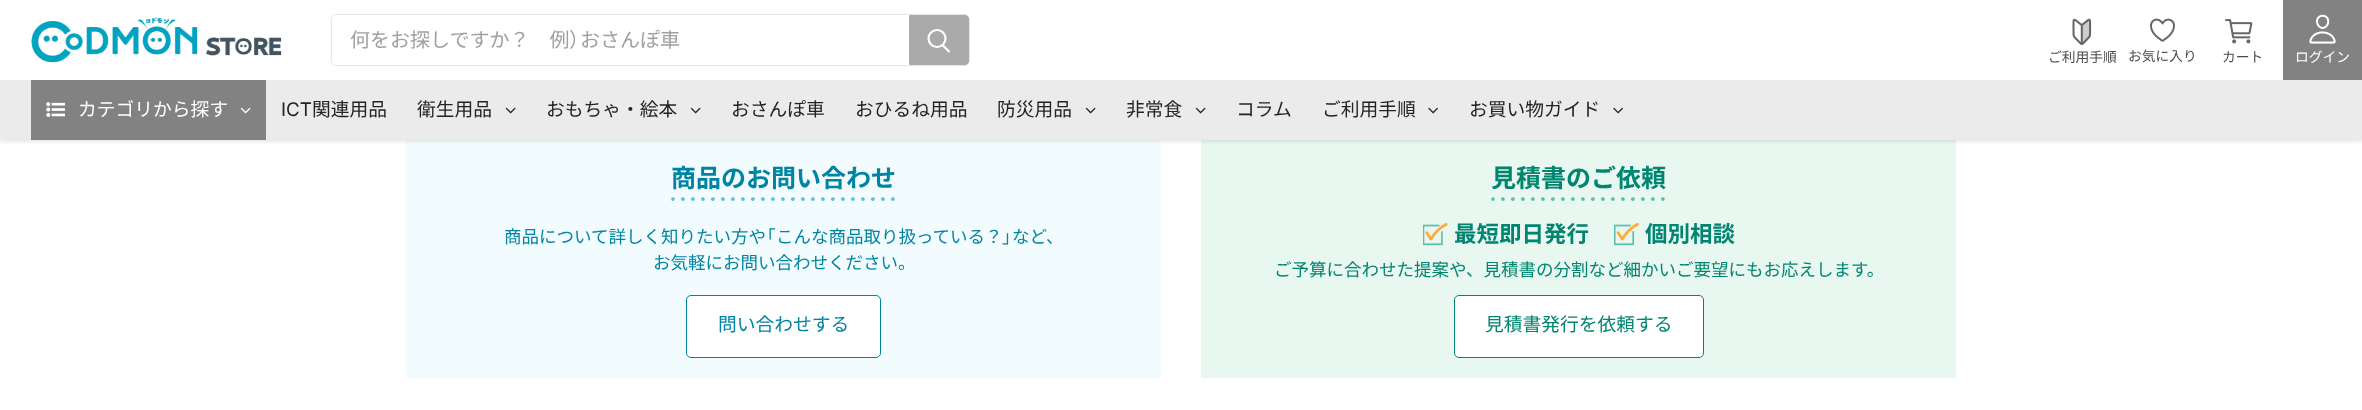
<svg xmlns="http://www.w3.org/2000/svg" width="2362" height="410">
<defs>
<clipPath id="clip1"><rect x="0" y="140" width="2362" height="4"/></clipPath>
</defs>
<rect width="100%" height="100%" fill="#fff"/>
<rect x="406" y="140" width="755" height="238" fill="#f2fcfe"/>
<rect x="1201" y="140" width="755" height="238" fill="#e8f7f0"/>
<g clip-path="url(#clip1)">
<rect y="1" width="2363" height="140" fill="#80808040" filter="blur(2.5px)"/>
</g>
<image x="31" y="17" width="251" height="46" href="media/1.png"/>
<rect x="331.5" y="14.5" width="638" height="51" rx="4.5" fill="none" stroke="#e6e6e6"/>
<text x="350" y="47" style="font-family:Noto Sans JP;font-size:20px;fill:#9fa0a0">何をお探しですか？　例</text>
<text x="569" y="47" style="font-family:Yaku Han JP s;font-size:20px;fill:#9fa0a0">）</text>
<text x="580" y="47" style="font-family:Noto Sans JP;font-size:20px;fill:#9fa0a0">おさんぽ車</text>
<path d="M909.5 15.5h55.5c2 0 3.5 1.5 3.5 3.5v42c0 2-1.5 3.5-3.5 3.5h-55.5z" fill="#aaa" stroke="#aaa"/>
<path d="M949 51.5l-6-6" fill="none" stroke="#fff" stroke-width="2.2" stroke-linecap="round"/>
<circle cx="937" cy="38.5" r="8.5" fill="none" stroke="#fff" stroke-width="2.2"/>
<image x="2072" y="18" width="20" height="27" href="media/2.png"/>
<text x="2048" y="62" style="font-family:Noto Sans JP;font-size:13.75px;fill:#4d4c4b">ご利用手順</text>
<image x="2150" y="18" width="25" height="24" href="media/3.png"/>
<text x="2128" y="61" style="font-family:Noto Sans JP;font-size:13.75px;fill:#4d4c4b">お気に入り</text>
<image x="2225" y="19" width="28" height="25" href="media/4.png"/>
<text x="2222" y="62" style="font-family:Noto Sans JP;font-size:13.75px;fill:#4d4c4b">カート</text>
<rect x="2283" width="79" height="80" fill="#828282"/>
<image x="2309" y="14" width="27" height="30" href="media/5.png"/>
<text x="2295" y="62" style="font-family:Noto Sans JP;font-size:13.75px;fill:#fff">ログイン</text>
<rect y="80" width="2362" height="60" fill="#ebebeb"/>
<rect x="31" y="80" width="235" height="60" fill="#828282"/>
<image x="46" y="102" width="19" height="15" href="media/6.png"/>
<text x="78" y="116" style="font-family:Noto Sans JP;font-size:18.75px;fill:#fff">カテゴリから探す</text>
<image x="240" y="107" width="11" height="7" href="media/7.png"/>
<text x="281" y="116" style="font-family:Inter;font-size:18.75px;fill:#242323">ICT</text>
<text x="312" y="116" style="font-family:Noto Sans JP;font-size:18.75px;fill:#242323">関連用品</text>
<text x="417" y="116" style="font-family:Noto Sans JP;font-size:18.75px;fill:#242323">衛生用品</text>
<image x="505" y="107" width="11" height="7" href="media/8.png"/>
<text x="546" y="116" style="font-family:Noto Sans JP;font-size:18.75px;fill:#242323">おもちゃ・絵本</text>
<image x="690" y="107" width="11" height="7" href="media/8.png"/>
<text x="731" y="116" style="font-family:Noto Sans JP;font-size:18.75px;fill:#242323">おさんぽ車</text>
<text x="855" y="116" style="font-family:Noto Sans JP;font-size:18.75px;fill:#242323">おひるね用品</text>
<text x="997" y="116" style="font-family:Noto Sans JP;font-size:18.75px;fill:#242323">防災用品</text>
<image x="1085" y="107" width="11" height="7" href="media/8.png"/>
<text x="1126" y="116" style="font-family:Noto Sans JP;font-size:18.75px;fill:#242323">非常食</text>
<image x="1195" y="107" width="11" height="7" href="media/8.png"/>
<text x="1236" y="116" style="font-family:Noto Sans JP;font-size:18.75px;fill:#242323">コラム</text>
<text x="1322" y="116" style="font-family:Noto Sans JP;font-size:18.75px;fill:#242323">ご利用手順</text>
<image x="1428" y="107" width="10" height="7" href="media/9.png"/>
<text x="1469" y="116" style="font-family:Noto Sans JP;font-size:18.75px;fill:#242323">お買い物ガイド</text>
<image x="1613" y="107" width="10" height="7" href="media/9.png"/>
<text x="671" y="187" style="font-family:Noto Sans JP;font-size:25px;font-weight:bold;fill:#0084a3">商品のお問い合わせ</text>
<image x="671" y="197" width="224" height="4" href="media/10.png"/>
<text x="504" y="243" style="font-family:Noto Sans JP;font-size:17.5px;fill:#0084a3">商品について詳しく知りたい方や</text>
<text x="766" y="243" style="font-family:Yaku Han JP s;font-size:17.5px;fill:#0084a3">「</text>
<text x="776" y="243" style="font-family:Noto Sans JP;font-size:17.5px;fill:#0084a3">こんな商品取り扱っている？</text>
<text x="1002" y="243" style="font-family:Yaku Han JP s;font-size:17.5px;fill:#0084a3">」</text>
<text x="1012" y="243" style="font-family:Noto Sans JP;font-size:17.5px;fill:#0084a3">など、</text>
<text x="653" y="269" style="font-family:Noto Sans JP;font-size:17.5px;fill:#0084a3">お気軽にお問い合わせください。</text>
<rect x="686.5" y="295.5" width="194" height="62" rx="4.5" fill="#fff" stroke="#0084a3"/>
<text x="718" y="331" style="font-family:Noto Sans JP;font-size:18.75px;fill:#0084a3">問い合わせする</text>
<text x="1491" y="187" style="font-family:Noto Sans JP;font-size:25px;font-weight:bold;fill:#008570">見積書のご依頼</text>
<image x="1491" y="197" width="174" height="4" href="media/11.png"/>
<image x="1423" y="222" width="25" height="24" href="media/12.png"/>
<text x="1454" y="242" style="font-family:Noto Sans JP;font-size:22.5px;font-weight:bold;fill:#008570">最短即日発行</text>
<image x="1614" y="222" width="25" height="24" href="media/13.png"/>
<text x="1645" y="242" style="font-family:Noto Sans JP;font-size:22.5px;font-weight:bold;fill:#008570">個別相談</text>
<text x="1274" y="276" style="font-family:Noto Sans JP;font-size:17.5px;fill:#008570">ご予算に合わせた提案や、見積書の分割など細かいご要望にもお応えします。</text>
<rect x="1454.5" y="295.5" width="249" height="62" rx="4.5" fill="#fff" stroke="#008570"/>
<text x="1485" y="331" style="font-family:Noto Sans JP;font-size:18.75px;fill:#008570">見積書発行を依頼する</text>
</svg>
